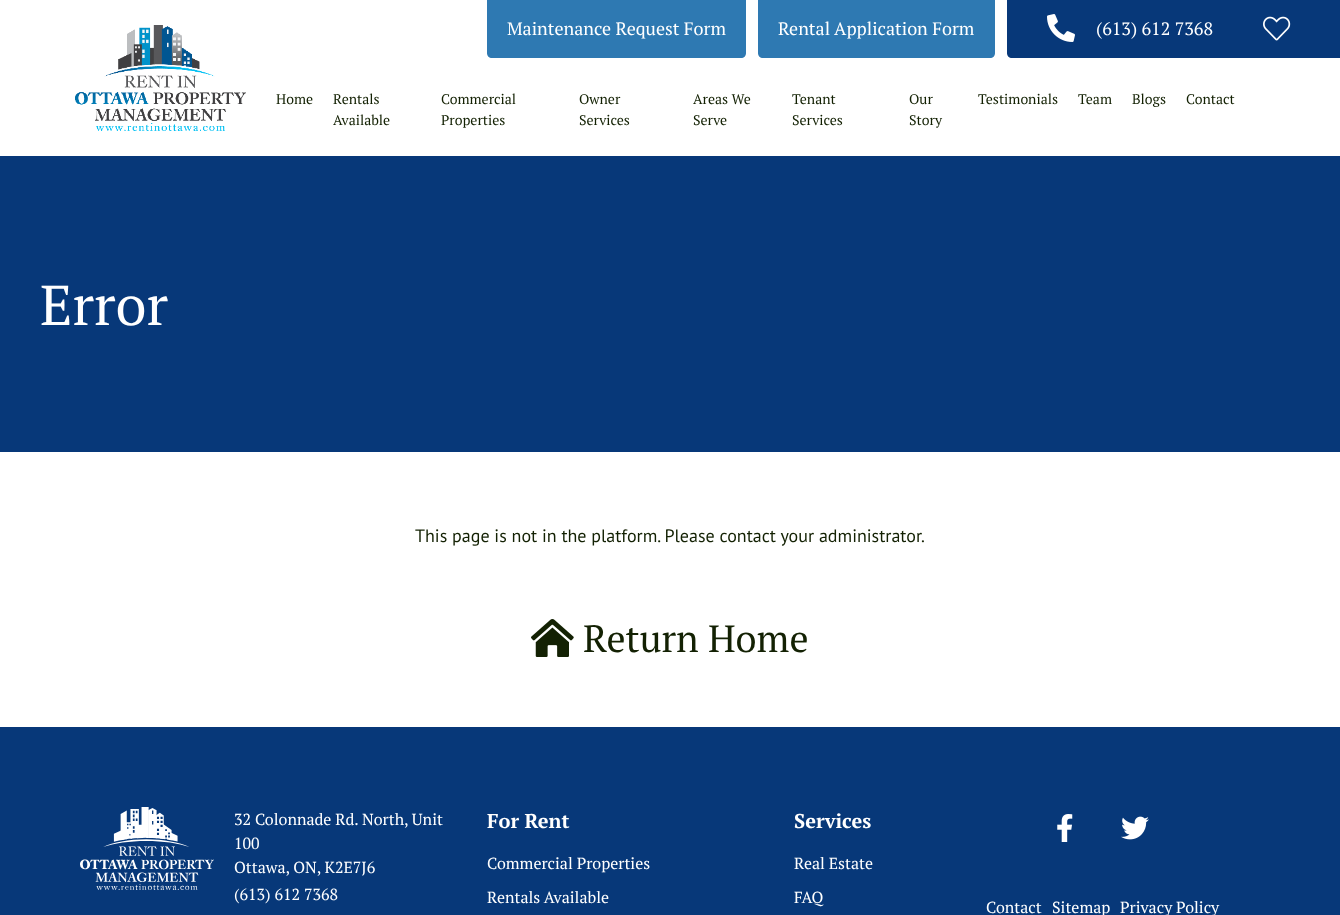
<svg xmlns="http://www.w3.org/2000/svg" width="1340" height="915">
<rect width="100%" height="100%" fill="#fff"/>
<image x="75" y="25" width="171" height="106" href="media/1.png"/>
<path d="M487 0h259v53c0 3-2 5-5 5h-249c-3 0-5-2-5-5z" fill="#2e79b2"/>
<text x="507" y="35" style="font-family:PT Serif;font-size:18px;fill:#fff">Maintenance Request Form</text>
<path d="M758 0h237v53c0 3-2 5-5 5h-227c-3 0-5-2-5-5z" fill="#2e79b2"/>
<text x="778" y="35" style="font-family:PT Serif;font-size:18px;fill:#fff">Rental Application Form</text>
<path d="M1007 0h333v58h-328c-3 0-5-2-5-5z" fill="#073879"/>
<image x="1047" y="14" width="28" height="28" href="media/2.png"/>
<text x="1096" y="35" style="font-family:PT Serif;font-size:18px;fill:#fff">(613) 612 7368</text>
<image x="1263" y="16" width="28" height="25" href="media/3.png"/>
<text x="276" y="104" style="font-family:PT Serif;font-size:14px;fill:#132103">Home</text>
<text x="333" y="104" style="font-family:PT Serif;font-size:14px;fill:#132103">Rentals</text>
<text x="333" y="125" style="font-family:PT Serif;font-size:14px;fill:#132103">Available</text>
<text x="441" y="104" style="font-family:PT Serif;font-size:14px;fill:#132103">Commercial</text>
<text x="441" y="125" style="font-family:PT Serif;font-size:14px;fill:#132103">Properties</text>
<text x="579" y="104" style="font-family:PT Serif;font-size:14px;fill:#132103">Owner</text>
<text x="579" y="125" style="font-family:PT Serif;font-size:14px;fill:#132103">Services</text>
<text x="693" y="104" style="font-family:PT Serif;font-size:14px;fill:#132103">Areas We</text>
<text x="693" y="125" style="font-family:PT Serif;font-size:14px;fill:#132103">Serve</text>
<text x="792" y="104" style="font-family:PT Serif;font-size:14px;fill:#132103">Tenant</text>
<text x="792" y="125" style="font-family:PT Serif;font-size:14px;fill:#132103">Services</text>
<text x="909" y="104" style="font-family:PT Serif;font-size:14px;fill:#132103">Our</text>
<text x="909" y="125" style="font-family:PT Serif;font-size:14px;fill:#132103">Story</text>
<text x="978" y="104" style="font-family:PT Serif;font-size:14px;fill:#132103">Testimonials</text>
<text x="1078" y="104" style="font-family:PT Serif;font-size:14px;fill:#132103">Team</text>
<text x="1132" y="104" style="font-family:PT Serif;font-size:14px;fill:#132103">Blogs</text>
<text x="1186" y="104" style="font-family:PT Serif;font-size:14px;fill:#132103">Contact</text>
<rect y="156" width="1340" height="296" fill="#073879"/>
<text x="40" y="325" style="font-family:PT Serif;font-size:56px;fill:#fff">Error</text>
<text x="415" y="542" style="font-family:PT Sans;font-size:18px;fill:#132103">This page is not in the platform. Please contact your administrator.</text>
<image x="531" y="619" width="43" height="38" href="media/4.png"/>
<text x="583" y="652" style="font-family:PT Serif;font-size:38px;fill:#132103">Return Home</text>
<rect y="727" width="1340" height="188" fill="#073879"/>
<image x="80" y="807" width="134" height="83" href="media/5.png"/>
<text x="234" y="825" style="font-family:PT Serif;font-size:16px;fill:#fff">32 Colonnade Rd. North, Unit</text>
<text x="234" y="849" style="font-family:PT Serif;font-size:16px;fill:#fff">100</text>
<text x="234" y="873" style="font-family:PT Serif;font-size:16px;fill:#fff">Ottawa, ON, K2E7J6</text>
<text x="234" y="900" style="font-family:PT Serif;font-size:16px;fill:#fff">(613) 612 7368</text>
<text x="487" y="828" style="font-family:PT Serif;font-size:20px;font-weight:bold;fill:#fff">For Rent</text>
<text x="487" y="869" style="font-family:PT Serif;font-size:16px;fill:#fff">Commercial Properties</text>
<text x="487" y="903" style="font-family:PT Serif;font-size:16px;fill:#fff">Rentals Available</text>
<text x="794" y="828" style="font-family:PT Serif;font-size:20px;font-weight:bold;fill:#fff">Services</text>
<text x="794" y="869" style="font-family:PT Serif;font-size:16px;fill:#fff">Real Estate</text>
<text x="794" y="903" style="font-family:PT Serif;font-size:16px;fill:#fff">FAQ</text>
<image x="1057" y="814" width="16" height="28" href="media/6.png"/>
<image x="1121" y="816" width="28" height="24" href="media/7.png"/>
<text x="986" y="913" style="font-family:PT Serif;font-size:16px;fill:#fff">Contact</text>
<text x="1052" y="913" style="font-family:PT Serif;font-size:16px;fill:#fff">Sitemap</text>
<text x="1120" y="913" style="font-family:PT Serif;font-size:16px;fill:#fff">Privacy Policy</text>
</svg>
